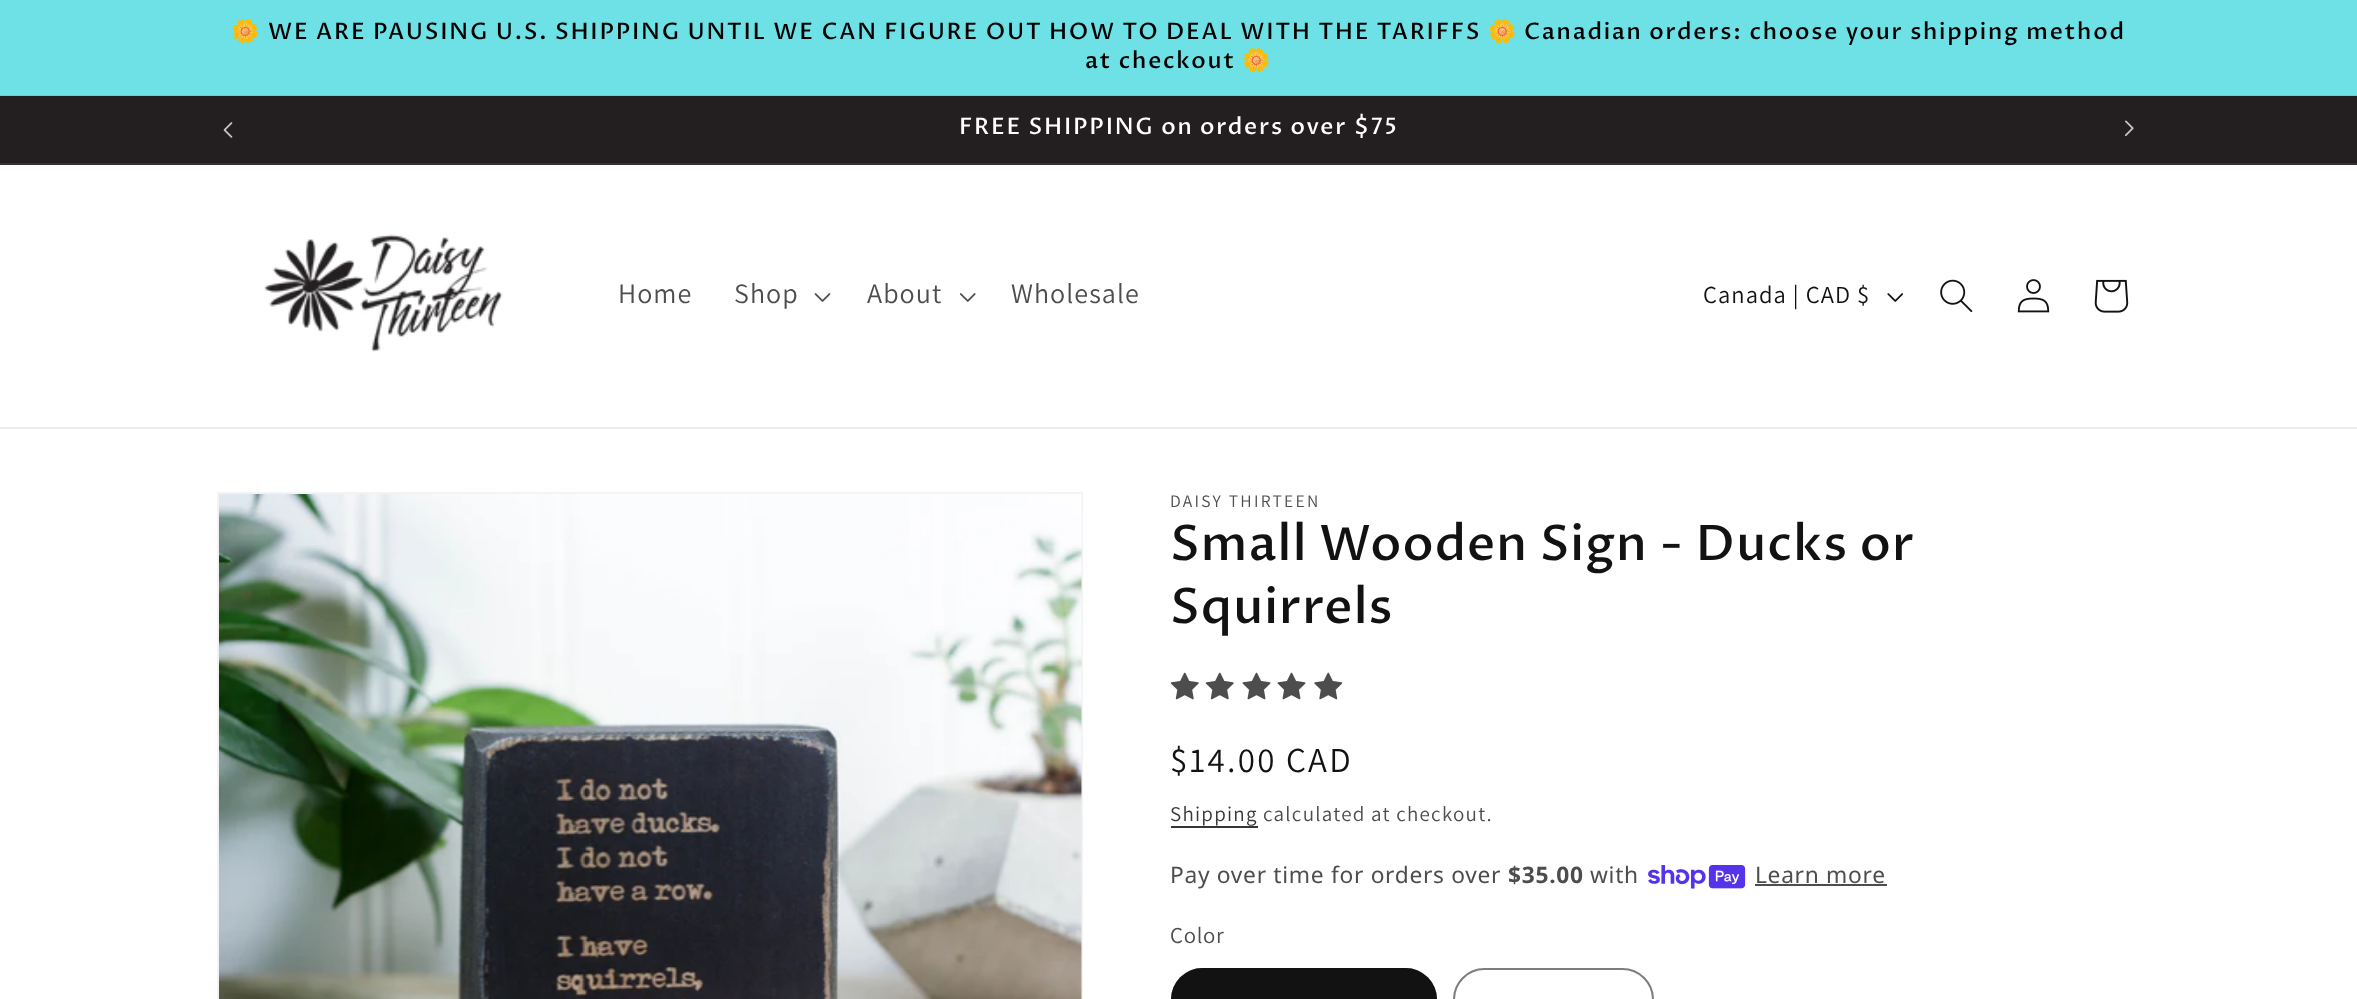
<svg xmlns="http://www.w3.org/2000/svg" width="2357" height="999">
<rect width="100%" height="100%" fill="#fff"/>
<rect width="2357" height="95" fill="#6de1e5"/>
<rect y="95" width="2357" height="1" fill="#64cfd3"/>
<text x="231" y="39" style="font-family:Noto Color Emoji;font-size:22.75px;letter-spacing:1.75px;fill:#000">🌼</text>
<text x="268" y="39" style="font-family:Proza Libre;font-size:22.75px;font-weight:500;letter-spacing:1.75px;fill:#000">WE ARE PAUSING U.S. SHIPPING UNTIL WE CAN FIGURE OUT HOW TO DEAL WITH THE TARIFFS</text>
<text x="1488" y="39" style="font-family:Noto Color Emoji;font-size:22.75px;letter-spacing:1.75px;fill:#000">🌼</text>
<text x="1524" y="39" style="font-family:Proza Libre;font-size:22.75px;font-weight:500;letter-spacing:1.75px;fill:#000">Canadian orders: choose your shipping method</text>
<text x="1085" y="68" style="font-family:Proza Libre;font-size:22.75px;font-weight:500;letter-spacing:1.75px;fill:#000">at checkout</text>
<text x="1242" y="68" style="font-family:Noto Color Emoji;font-size:22.75px;letter-spacing:1.75px;fill:#000">🌼</text>
<rect y="96" width="2357" height="67" fill="#231f20"/>
<rect y="163" width="2357" height="2" fill="#353132"/>
<image x="223" y="122" width="10" height="16" href="media/1.png"/>
<text x="959" y="134" style="font-family:Proza Libre;font-size:22.75px;font-weight:500;letter-spacing:1.75px;fill:#fff">FREE SHIPPING on orders over $75</text>
<image x="2124" y="120" width="10" height="17" href="media/2.png"/>
<rect y="427" width="2357" height="2" fill="#ececec"/>
<image x="264" y="234" width="239" height="118" href="media/3.png"/>
<text x="618" y="303" style="font-family:Assistant;font-size:28px;letter-spacing:1.05px;fill:#4d4d4d">Home</text>
<text x="734" y="303" style="font-family:Assistant;font-size:28px;letter-spacing:1.05px;fill:#4d4d4d">Shop</text>
<image x="814" y="293" width="17" height="9" href="media/4.png"/>
<text x="867" y="303" style="font-family:Assistant;font-size:28px;letter-spacing:1.05px;fill:#4d4d4d">About</text>
<image x="960" y="293" width="16" height="9" href="media/5.png"/>
<text x="1011" y="303" style="font-family:Assistant;font-size:28px;letter-spacing:1.05px;fill:#4d4d4d">Wholesale</text>
<text x="1703" y="303" style="font-family:Assistant;font-size:24.5px;letter-spacing:1.05px;fill:#121212">Canada | CAD $</text>
<image x="1887" y="293" width="16" height="9" href="media/6.png"/>
<image x="1940" y="279" width="33" height="34" href="media/7.png"/>
<image x="2017" y="279" width="33" height="34" href="media/8.png"/>
<image x="2094" y="279" width="35" height="34" href="media/9.png"/>
<rect x="218" y="493" width="864" height="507" fill="none" stroke="#f3f3f3" stroke-width="2"/>
<image x="219" y="494" width="863" height="505" href="media/10.png"/>
<text x="1170" y="507" style="font-family:Assistant;font-size:17.5px;letter-spacing:2.25px;fill:#4d4d4d">DAISY THIRTEEN</text>
<text x="1170" y="560" style="font-family:Proza Libre;font-size:49px;font-weight:500;letter-spacing:1.05px;fill:#121212">Small Wooden Sign - Ducks or</text>
<text x="1170" y="623" style="font-family:Proza Libre;font-size:49px;font-weight:500;letter-spacing:1.05px;fill:#121212">Squirrels</text>
<image x="1170" y="672" width="29" height="28" href="media/11.png"/>
<image x="1205" y="672" width="29" height="28" href="media/11.png"/>
<image x="1242" y="672" width="29" height="28" href="media/12.png"/>
<image x="1277" y="672" width="29" height="28" href="media/12.png"/>
<image x="1314" y="672" width="29" height="28" href="media/13.png"/>
<text x="1170" y="772" style="font-family:Assistant;font-size:35px;letter-spacing:2.25px;fill:#121212">$14.00 CAD</text>
<text x="1170" y="821" style="font-family:Assistant;font-size:21px;letter-spacing:1.25px;fill:#363636">Shipping</text>
<rect x="1171" y="826" width="87" height="2" fill="#363636"/>
<text x="1263" y="821" style="font-family:Assistant;font-size:21px;letter-spacing:1.25px;fill:#4d4d4d">calculated at checkout.</text>
<text x="1170" y="883" style="font-family:Noto Sans;font-size:22.75px;letter-spacing:0.7px;fill:#4d4d4d">Pay over time for orders over</text>
<text x="1508" y="883" style="font-family:Noto Sans;font-size:22.75px;font-weight:bold;letter-spacing:0.7px;fill:#4d4d4d">$35.00</text>
<text x="1590" y="883" style="font-family:Noto Sans;font-size:22.75px;letter-spacing:0.7px;fill:#4d4d4d">with</text>
<image x="1648" y="865" width="98" height="24" href="media/14.png"/>
<text x="1755" y="883" style="font-family:Noto Sans;font-size:22.75px;letter-spacing:0.7px;fill:#4d4d4d">Learn more</text>
<rect x="1755" y="884" width="132" height="2" fill="#4d4d4d"/>
<text x="1170" y="943" style="font-family:Assistant;font-size:22.75px;letter-spacing:0.7px;fill:#4d4d4d">Color</text>
<rect x="1171" y="968" width="266" height="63" rx="31.5" fill="#121212"/>
<rect x="1172" y="969" width="264" height="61" rx="30.5" fill="none" stroke="#1212128c" stroke-width="2"/>
<rect x="1454" y="969" width="199" height="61" rx="30.5" fill="none" stroke="#7d7d7d" stroke-width="2"/>
</svg>
